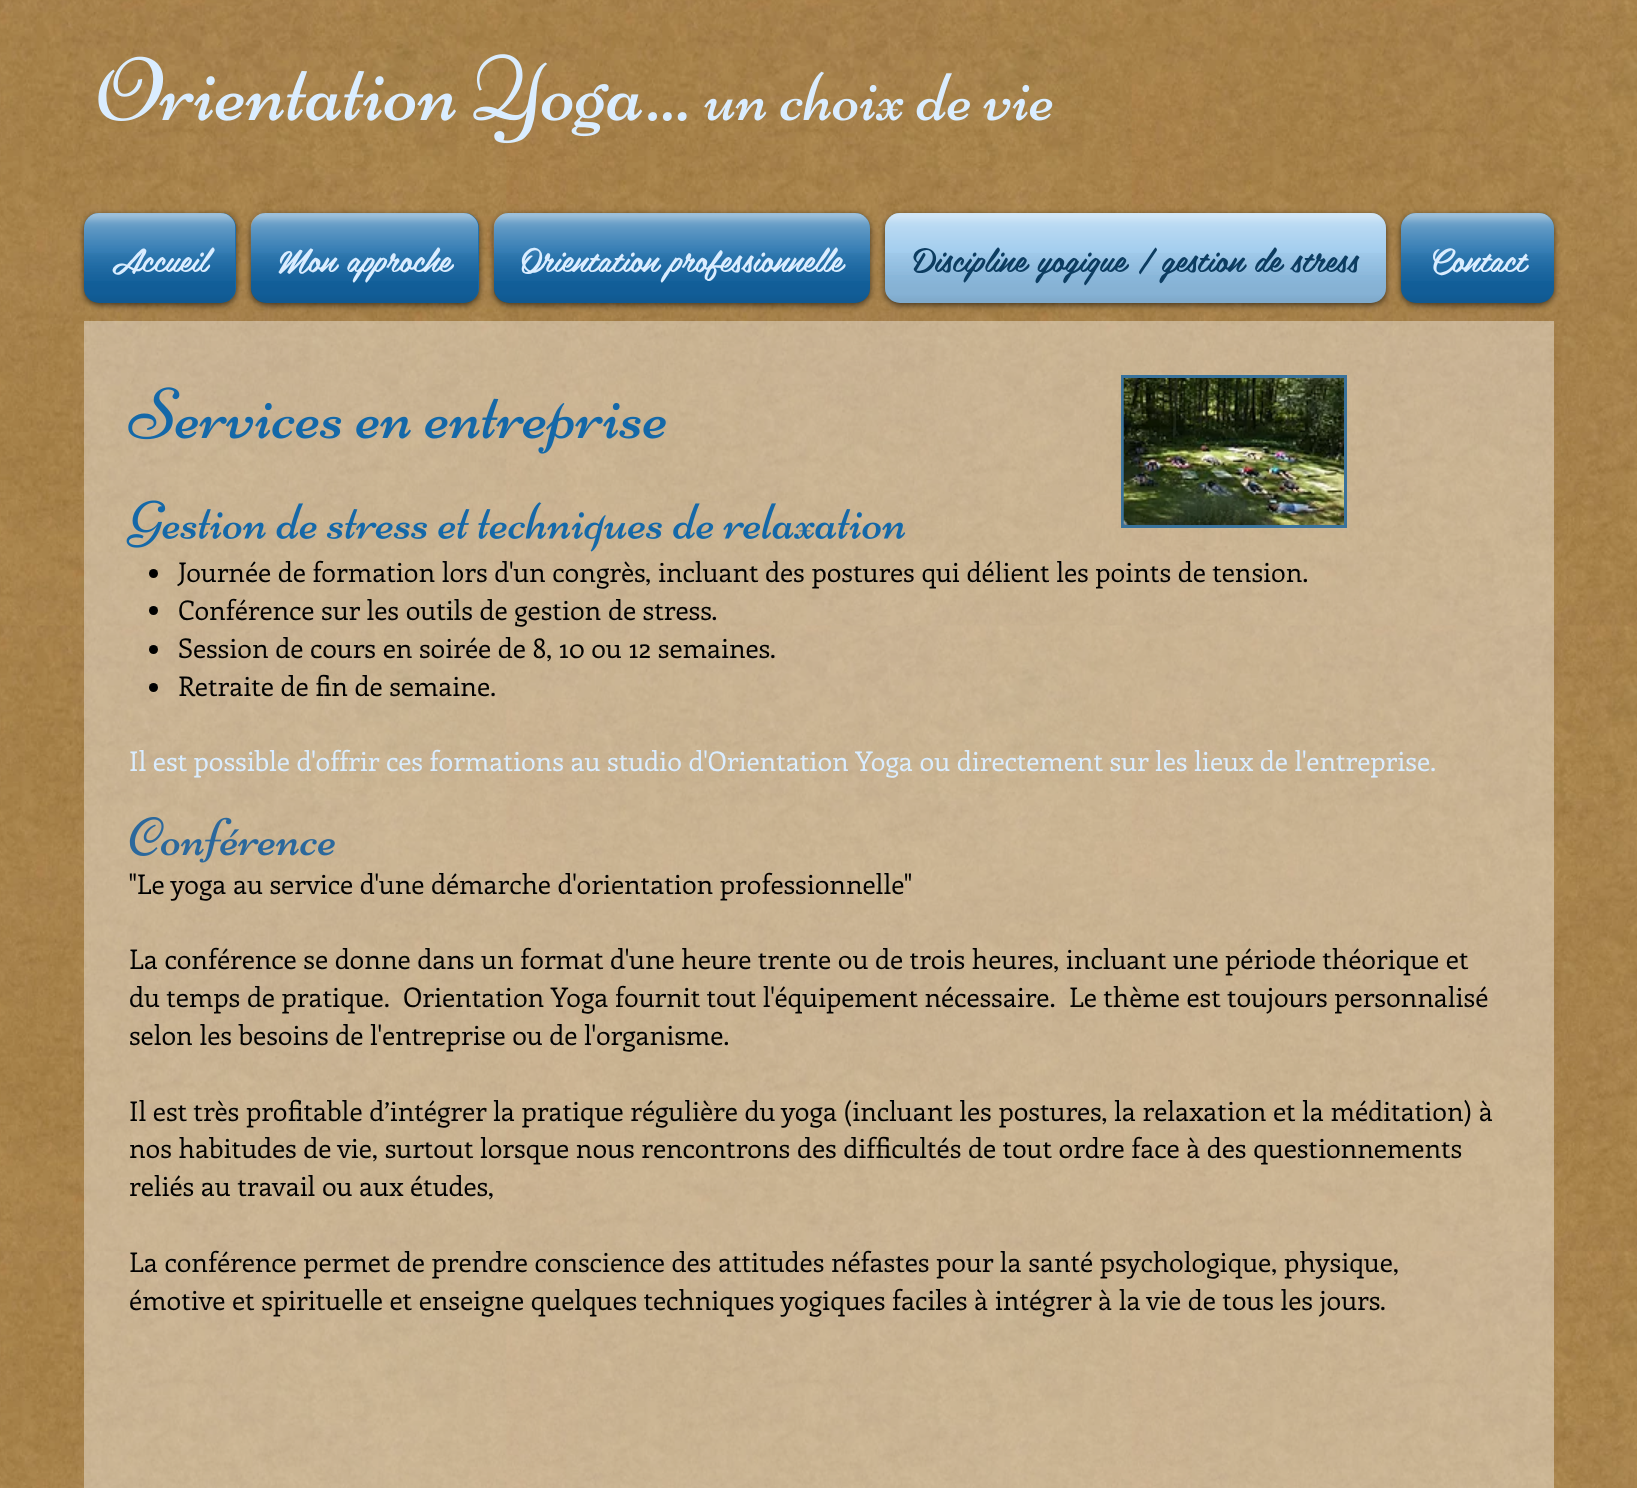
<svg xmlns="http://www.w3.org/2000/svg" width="1637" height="1488">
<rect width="100%" height="100%" fill="#fff"/>
<image x="0" y="0" width="1637" height="1488" href="media/1.png"/>
<image x="98" y="54" width="589" height="90" href="media/2.png"/>
<image x="704" y="98" width="99" height="23" href="media/3.png"/>
<image x="803" y="71" width="250" height="50" href="media/4.png"/>
<rect x="84" y="215" width="152" height="90" rx="15" fill="#00000099" filter="blur(3px)"/>
<rect x="84" y="213" width="152" height="90" rx="15" fill="#1468a8"/>
<image x="84" y="213" width="152" height="68" href="media/5.png"/>
<image x="84" y="253" width="151" height="50" href="media/6.png"/>
<text x="112" y="272" style="font-family:'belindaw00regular';font-size:33px;fill:#daedff">Accueil</text>
<rect x="251" y="215" width="228" height="90" rx="15" fill="#00000099" filter="blur(3px)"/>
<rect x="251" y="213" width="228" height="90" rx="15" fill="#1468a8"/>
<image x="250" y="213" width="229" height="68" href="media/7.png"/>
<image x="251" y="253" width="227" height="50" href="media/8.png"/>
<text x="278" y="272" style="font-family:'belindaw00regular';font-size:33px;fill:#daedff">Mon approche</text>
<rect x="494" y="215" width="376" height="90" rx="15" fill="#00000099" filter="blur(3px)"/>
<rect x="494" y="213" width="376" height="90" rx="15" fill="#1468a8"/>
<image x="493" y="213" width="377" height="68" href="media/9.png"/>
<image x="494" y="253" width="376" height="50" href="media/10.png"/>
<text x="521" y="272" style="font-family:'belindaw00regular';font-size:33px;fill:#daedff">Orientation professionnelle</text>
<rect x="885" y="215" width="501" height="90" rx="15" fill="#00000099" filter="blur(3px)"/>
<rect x="885" y="213" width="501" height="90" rx="15" fill="#95c6ec"/>
<image x="885" y="213" width="501" height="62" href="media/11.png"/>
<image x="885" y="253" width="501" height="50" href="media/12.png"/>
<text x="913" y="272" style="font-family:'belindaw00regular';font-size:33px;fill:#0c3c60">Discipline yogique / gestion de stress</text>
<rect x="1401" y="215" width="153" height="90" rx="15" fill="#00000099" filter="blur(3px)"/>
<rect x="1401" y="213" width="153" height="90" rx="15" fill="#1468a8"/>
<image x="1401" y="213" width="153" height="68" href="media/13.png"/>
<image x="1401" y="253" width="153" height="50" href="media/14.png"/>
<text x="1429" y="272" style="font-family:'belindaw00regular';font-size:33px;fill:#daedff">Contact</text>
<rect x="84" y="321" width="1470" height="1167" fill="#ffffff66"/>
<image x="128" y="387" width="538" height="67" href="media/15.png"/>
<rect x="1121" y="375" width="226" height="153" fill="#39729b"/>
<image x="1123" y="378" width="221" height="147" href="media/16.png"/>
<image x="126" y="500" width="780" height="52" href="media/17.png"/>
<circle cx="153.5" cy="573.5" r="4.5" fill="#000"/>
<text x="178" y="582" style="font-family:Enriqueta;font-size:27px;fill:#000">Journée de formation lors d'un congrès, incluant des postures qui délient les points de tension.</text>
<circle cx="153.5" cy="610.5" r="4.5" fill="#000"/>
<text x="178" y="620" style="font-family:Enriqueta;font-size:27px;fill:#000">Conférence sur les outils de gestion de stress.</text>
<circle cx="153.5" cy="649.5" r="4.5" fill="#000"/>
<text x="178" y="658" style="font-family:Enriqueta;font-size:27px;fill:#000">Session de cours en soirée de 8, 10 ou 12 semaines.</text>
<circle cx="153.5" cy="687.5" r="4.5" fill="#000"/>
<text x="178" y="696" style="font-family:Enriqueta;font-size:27px;fill:#000">Retraite de fin de semaine.</text>
<text x="129" y="771" style="font-family:Enriqueta;font-size:27px;fill:#daedff">Il est possible d'offrir ces formations au studio d'Orientation Yoga ou directement sur les lieux de l'entreprise.</text>
<image x="129" y="817" width="206" height="46" href="media/18.png"/>
<text x="129" y="894" style="font-family:Enriqueta;font-size:27px;fill:#000">"Le yoga au service d'une démarche d'orientation professionnelle"</text>
<text x="129" y="969" style="font-family:Enriqueta;font-size:27px;fill:#000">La conférence se donne dans un format d'une heure trente ou de trois heures, incluant une période théorique et</text>
<text x="129" y="1007" style="font-family:Enriqueta;font-size:27px;fill:#000">du temps de pratique.</text>
<text x="403" y="1007" style="font-family:Enriqueta;font-size:27px;fill:#000">Orientation Yoga fournit tout l'équipement nécessaire.</text>
<text x="1069" y="1007" style="font-family:Enriqueta;font-size:27px;fill:#000">Le thème est toujours personnalisé</text>
<text x="129" y="1045" style="font-family:Enriqueta;font-size:27px;fill:#000">selon les besoins de l'entreprise ou de l'organisme.</text>
<text x="129" y="1121" style="font-family:Enriqueta;font-size:27px;fill:#000">Il est très profitable d’intégrer la pratique régulière du yoga (incluant les postures, la relaxation et la méditation) à</text>
<text x="129" y="1158" style="font-family:Enriqueta;font-size:27px;fill:#000">nos habitudes de vie, surtout lorsque nous rencontrons des difficultés de tout ordre face à des questionnements</text>
<text x="129" y="1196" style="font-family:Enriqueta;font-size:27px;fill:#000">reliés au travail ou aux études,</text>
<text x="129" y="1272" style="font-family:Enriqueta;font-size:27px;fill:#000">La conférence permet de prendre conscience des attitudes néfastes pour la santé psychologique, physique,</text>
<text x="129" y="1310" style="font-family:Enriqueta;font-size:27px;fill:#000">émotive et spirituelle et enseigne quelques techniques yogiques faciles à intégrer à la vie de tous les jours.</text>
</svg>
